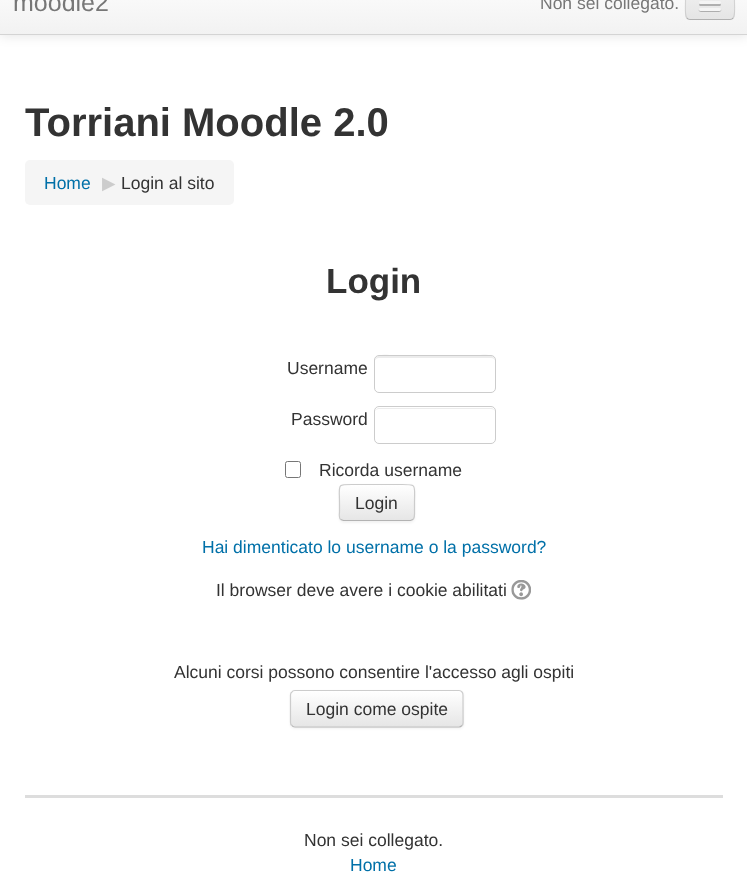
<svg xmlns="http://www.w3.org/2000/svg" width="747" height="875">
<defs>
<linearGradient id="g1" gradientUnits="userSpaceOnUse" x1="374" y1="-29" x2="374" y2="34"><stop offset="0" stop-color="#fff"/><stop offset="1" stop-color="#f2f2f2"/></linearGradient>
<clipPath id="clip1"><rect x="685" y="-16" width="50" height="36" rx="5"/></clipPath>
<linearGradient id="g2" gradientUnits="userSpaceOnUse" x1="710" y1="-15" x2="710" y2="19"><stop offset="0" stop-color="#f2f2f2"/><stop offset="1" stop-color="#e5e5e5"/></linearGradient>
<clipPath id="clip2"><rect x="339" y="484" width="76" height="37" rx="5"/></clipPath>
<linearGradient id="g3" gradientUnits="userSpaceOnUse" x1="377" y1="485" x2="377" y2="520"><stop offset="0" stop-color="#fff"/><stop offset="1" stop-color="#e6e6e6"/></linearGradient>
<clipPath id="clip3"><rect x="290" y="690" width="174" height="38" rx="5"/></clipPath>
<linearGradient id="g4" gradientUnits="userSpaceOnUse" x1="377" y1="691" x2="377" y2="726"><stop offset="0" stop-color="#fff"/><stop offset="1" stop-color="#e6e6e6"/></linearGradient>
</defs>
<rect width="100%" height="100%" fill="#fff"/>
<rect y="-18" width="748" height="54" fill="#0000001a" filter="blur(6px)"/>
<rect width="747" height="34" fill="url(#g1)"/>
<rect y="34" width="747" height="1" fill="#d4d4d4"/>
<text x="13" y="11" style="font-family:Liberation Sans;font-size:25px;fill:#777">moodle2</text>
<text x="540" y="9" style="font-family:Liberation Sans;font-size:17.5px;fill:#777">Non sei collegato.</text>
<rect x="685" y="-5" width="50" height="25" rx="5" fill="#ededed"/>
<g clip-path="url(#clip1)">
<rect x="685" width="50" height="19" fill="url(#g2)"/>
</g>
<path d="M733 18c-.5 1-2 1.5-3 1.5h-40c-1 0-2.5-.5-3-1.5" fill="none" stroke="#00000040" stroke-width="1.2"/>
<path d="M687 18c-2.5-2.5-1.5-13-1.5-16v-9c0-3-.5-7.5 3.5-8.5h42c4 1 3.5 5.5 3.5 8.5v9c0 3 1 13.5-1.5 16" fill="none" stroke="#0000001a" stroke-width="1.2"/>
<path d="M699.5 3.5l-.5 1.5c.5 1.5 3.5 1 4.5 1h13c1 0 4 .5 4.5-1l-.5-1.5z" fill="#b0b0b0"/>
<rect x="699" y="1" width="22" height="3" rx="1.5" fill="#f5f5f5"/>
<path d="M699 9.5c-1.5 3 4 2.5 4.5 2.5h13c.5 0 6 .5 4.5-2.5c-1 .5-21 .5-22 0z" fill="#aeaeae"/>
<rect x="699" y="8" width="22" height="3" rx="1.5" fill="#f5f5f5"/>
<text x="25" y="136" style="font-family:Liberation Sans;font-size:40px;font-weight:bold;fill:#333">Torriani Moodle 2.0</text>
<rect x="25" y="160" width="209" height="45" rx="5" fill="#f5f5f5"/>
<text x="44" y="189" style="font-family:Liberation Sans;font-size:17.5px;fill:#0070a8">Home</text>
<text x="102" y="189" style="font-family:DejaVu Sans;font-size:17.5px;fill:#ccc">▶︎</text>
<text x="121" y="189" style="font-family:Liberation Sans;font-size:17.5px;fill:#333">Login al sito</text>
<text x="326" y="293" style="font-family:Liberation Sans;font-size:35px;font-weight:bold;fill:#333">Login</text>
<text x="287" y="374" style="font-family:Liberation Sans;font-size:17.5px;fill:#333">Username</text>
<path d="M379 358h112c2 0 4 1 4 3c0-10-20-5-23-5h-74c-3 0-23-5-23 5c0-2 2-3 4-3z" fill="#ececec"/>
<rect x="374.5" y="355.5" width="121" height="37" rx="4.5" fill="none" stroke="#ccc"/>
<text x="291" y="425" style="font-family:Liberation Sans;font-size:17.5px;fill:#333">Password</text>
<path d="M379 409h112c2 0 4 1 4 3c0-2-2-4-4-4h-112c-2 0-4 2-4 4c0-2 2-3 4-3z" fill="#ececec"/>
<rect x="374.5" y="406.5" width="121" height="37" rx="4.5" fill="none" stroke="#ccc"/>
<rect x="285.5" y="461.5" width="15" height="16" rx="2" fill="none" stroke="#767676"/>
<text x="319" y="476" style="font-family:Liberation Sans;font-size:17.5px;fill:#333">Ricorda username</text>
<rect x="339" y="485" width="76" height="38" rx="5" fill="#0000000d" filter="blur(1px)"/>
<rect x="339" y="484" width="76" height="37" rx="5" fill="#f5f5f5"/>
<g clip-path="url(#clip2)">
<rect x="339" y="485" width="76" height="35" fill="url(#g3)"/>
</g>
<path d="M413 519.5l-2.5 1h-67l-3-1" fill="none" stroke="#b3b3b3" stroke-width="1.2"/>
<path d="M340.5 519.5c-2-2-1-5.5-1-8v-9c0-19-3.5-18 15.5-18h44c18.5 0 15.5-1 15.5 18v9c0 2.5 .5 6-1.5 8" fill="none" stroke="#ccc" stroke-width="1.2"/>
<text x="355" y="509" style="font-family:Liberation Sans;font-size:17.5px;fill:#333">Login</text>
<text x="202" y="553" style="font-family:Liberation Sans;font-size:17.5px;fill:#0070a8">Hai dimenticato lo username o la password?</text>
<text x="216" y="596" style="font-family:Liberation Sans;font-size:17.5px;fill:#333">Il browser deve avere i cookie abilitati</text>
<image x="511" y="580" width="20" height="20" href="media/1.png"/>
<text x="174" y="678" style="font-family:Liberation Sans;font-size:17.5px;fill:#333">Alcuni corsi possono consentire l'accesso agli ospiti</text>
<rect x="290" y="691" width="174" height="38" rx="5" fill="#0000000d" filter="blur(1px)"/>
<rect x="290" y="690" width="174" height="38" rx="5" fill="#f5f5f5"/>
<g clip-path="url(#clip3)">
<rect x="290" y="691" width="174" height="35" fill="url(#g4)"/>
</g>
<path d="M295 692h164c5 0 3 11 3 13v20c1-1 1-2 1-3v-27c0-2-2-4-4-4h-164c-2 0-4 2-4 4v1c0-2 2-4 4-4z" fill="#ffffff33"/>
<path d="M462 725.5c-1 1-2 1.5-3 1.5h-164c-1 0-2.5-.5-3-1.5" fill="none" stroke="#b3b3b3" stroke-width="1.2"/>
<path d="M292 725.5c-1-.5-1.5-2-1.5-3v-27.5c0-1 .5-2.5 1.5-3c.5-1 2-1.5 3-1.5h164c1 0 2 .5 3 1.5c.5 .5 1 2 1 3v27.5c0 1-.5 2.5-1 3" fill="none" stroke="#ccc" stroke-width="1.2"/>
<text x="306" y="715" style="font-family:Liberation Sans;font-size:17.5px;fill:#333">Login come ospite</text>
<rect x="25" y="795" width="698" height="3" fill="#ddd"/>
<text x="304" y="846" style="font-family:Liberation Sans;font-size:17.5px;fill:#333">Non sei collegato.</text>
<text x="350" y="871" style="font-family:Liberation Sans;font-size:17.5px;fill:#0070a8">Home</text>
</svg>
